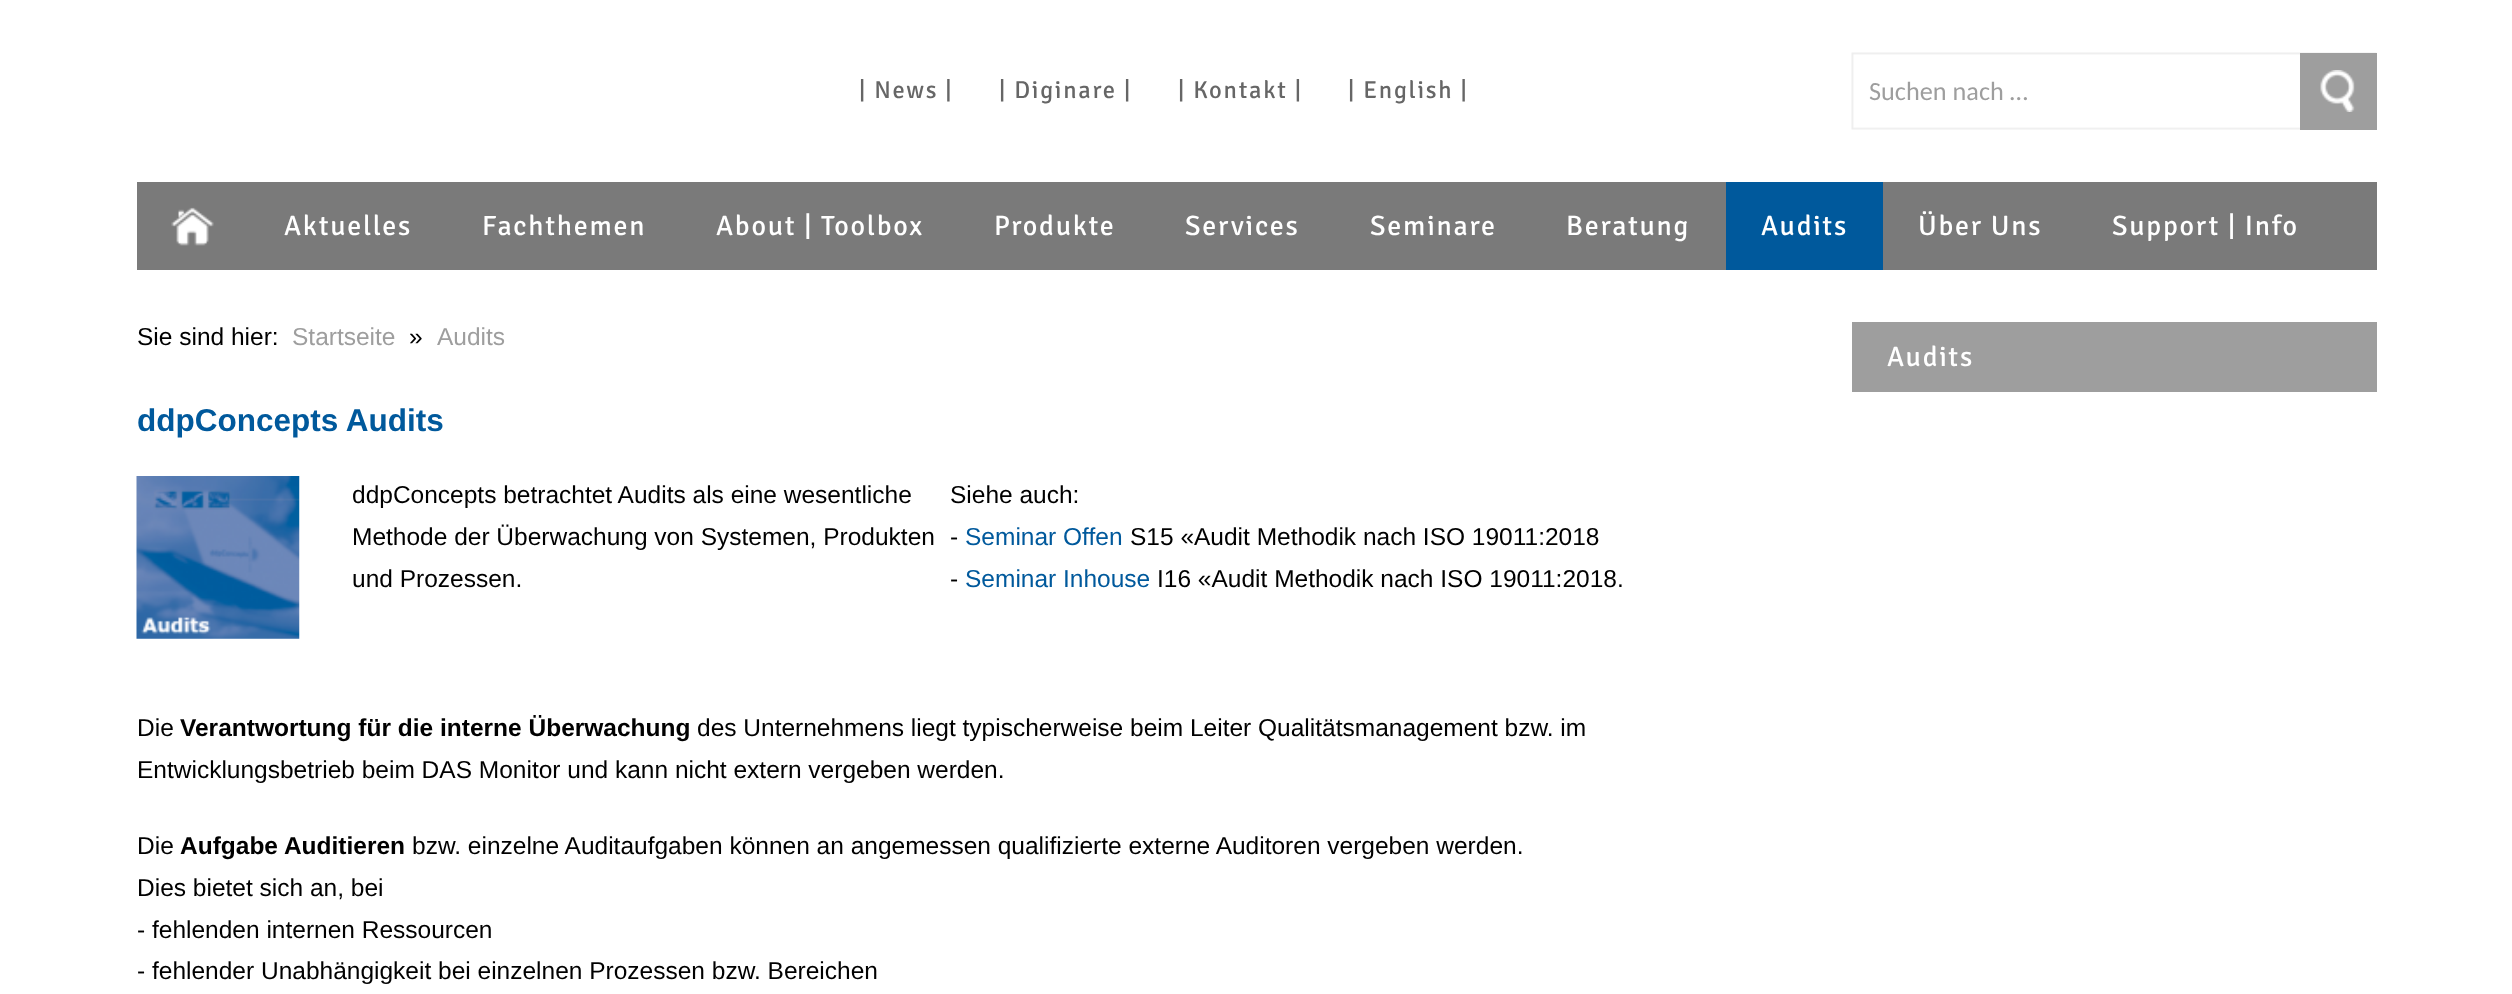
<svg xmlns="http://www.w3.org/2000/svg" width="2512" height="994">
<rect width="100%" height="100%" fill="#fff"/>
<text x="859" y="98" style="font-family:Signika;font-size:24.5px;letter-spacing:1.75px;fill:#666">| News |</text>
<text x="999" y="98" style="font-family:Signika;font-size:24.5px;letter-spacing:1.75px;fill:#666">| Diginare |</text>
<text x="1178" y="98" style="font-family:Signika;font-size:24.5px;letter-spacing:1.75px;fill:#666">| Kontakt |</text>
<text x="1348" y="98" style="font-family:Signika;font-size:24.5px;letter-spacing:1.75px;fill:#666">| English |</text>
<image x="1851" y="52" width="526" height="78" href="media/1.png"/>
<text x="1869" y="100" style="font-family:Carlito;font-size:26.25px;fill:#9e9e9e">Suchen nach …</text>
<rect x="2300" y="53" width="77" height="77" fill="#9e9e9e"/>
<image x="2320" y="70" width="35" height="42" href="media/2.png"/>
<rect x="137" y="182" width="2240" height="88" fill="#7a7a7a"/>
<image x="171" y="207" width="43" height="39" href="media/3.png"/>
<text x="284" y="235" style="font-family:Signika;font-size:28px;letter-spacing:1.75px;fill:#fff">Aktuelles</text>
<text x="482" y="235" style="font-family:Signika;font-size:28px;letter-spacing:1.75px;fill:#fff">Fachthemen</text>
<text x="716" y="235" style="font-family:Signika;font-size:28px;letter-spacing:1.75px;fill:#fff">About | Toolbox</text>
<text x="994" y="235" style="font-family:Signika;font-size:28px;letter-spacing:1.75px;fill:#fff">Produkte</text>
<text x="1185" y="235" style="font-family:Signika;font-size:28px;letter-spacing:1.75px;fill:#fff">Services</text>
<text x="1370" y="235" style="font-family:Signika;font-size:28px;letter-spacing:1.75px;fill:#fff">Seminare</text>
<text x="1566" y="235" style="font-family:Signika;font-size:28px;letter-spacing:1.75px;fill:#fff">Beratung</text>
<rect x="1726" y="182" width="157" height="88" fill="#00599c"/>
<text x="1761" y="235" style="font-family:Signika;font-size:28px;letter-spacing:1.75px;fill:#fff">Audits</text>
<text x="1918" y="235" style="font-family:Signika;font-size:28px;letter-spacing:1.75px;fill:#fff">Über Uns</text>
<text x="2112" y="235" style="font-family:Signika;font-size:28px;letter-spacing:1.75px;fill:#fff">Support | Info</text>
<text x="137" y="345" style="font-family:Liberation Sans;font-size:24.5px;fill:#000">Sie sind hier:</text>
<text x="292" y="345" style="font-family:Liberation Sans;font-size:24.5px;fill:#9e9e9e">Startseite</text>
<text x="409" y="345" style="font-family:Liberation Sans;font-size:24.5px;fill:#000">»</text>
<text x="437" y="345" style="font-family:Liberation Sans;font-size:24.5px;fill:#9e9e9e">Audits</text>
<text x="137" y="431" style="font-family:Liberation Sans;font-size:31.5px;font-weight:bold;fill:#00599c">ddpConcepts Audits</text>
<image x="136" y="476" width="164" height="163" href="media/4.png"/>
<text x="352" y="503" style="font-family:Liberation Sans;font-size:24.5px;fill:#000">ddpConcepts betrachtet Audits als eine wesentliche</text>
<text x="352" y="545" style="font-family:Liberation Sans;font-size:24.5px;fill:#000">Methode der Überwachung von Systemen, Produkten</text>
<text x="352" y="587" style="font-family:Liberation Sans;font-size:24.5px;fill:#000">und Prozessen.</text>
<text x="950" y="503" style="font-family:Liberation Sans;font-size:24.5px;fill:#000">Siehe auch:</text>
<text x="950" y="545" style="font-family:Liberation Sans;font-size:24.5px;fill:#000">-</text>
<text x="965" y="545" style="font-family:Liberation Sans;font-size:24.5px;fill:#00599c">Seminar Offen</text>
<text x="1130" y="545" style="font-family:Liberation Sans;font-size:24.5px;fill:#000">S15 «Audit Methodik nach ISO 19011:2018</text>
<text x="950" y="587" style="font-family:Liberation Sans;font-size:24.5px;fill:#000">-</text>
<text x="965" y="587" style="font-family:Liberation Sans;font-size:24.5px;fill:#00599c">Seminar Inhouse</text>
<text x="1157" y="587" style="font-family:Liberation Sans;font-size:24.5px;fill:#000">I16 «Audit Methodik nach ISO 19011:2018.</text>
<text x="137" y="736" style="font-family:Liberation Sans;font-size:24.5px;fill:#000">Die</text>
<text x="180" y="736" style="font-family:Liberation Sans;font-size:24.5px;font-weight:bold;fill:#000">Verantwortung für die interne Überwachung</text>
<text x="697" y="736" style="font-family:Liberation Sans;font-size:24.5px;fill:#000">des Unternehmens liegt typischerweise beim Leiter Qualitätsmanagement bzw. im</text>
<text x="137" y="778" style="font-family:Liberation Sans;font-size:24.5px;fill:#000">Entwicklungsbetrieb beim DAS Monitor und kann nicht extern vergeben werden.</text>
<text x="137" y="854" style="font-family:Liberation Sans;font-size:24.5px;fill:#000">Die</text>
<text x="180" y="854" style="font-family:Liberation Sans;font-size:24.5px;font-weight:bold;fill:#000">Aufgabe Auditieren</text>
<text x="412" y="854" style="font-family:Liberation Sans;font-size:24.5px;fill:#000">bzw. einzelne Auditaufgaben können an angemessen qualifizierte externe Auditoren vergeben werden.</text>
<text x="137" y="896" style="font-family:Liberation Sans;font-size:24.5px;fill:#000">Dies bietet sich an, bei</text>
<text x="137" y="938" style="font-family:Liberation Sans;font-size:24.5px;fill:#000">- fehlenden internen Ressourcen</text>
<text x="137" y="979" style="font-family:Liberation Sans;font-size:24.5px;fill:#000">- fehlender Unabhängigkeit bei einzelnen Prozessen bzw. Bereichen</text>
<rect x="1852" y="322" width="525" height="70" fill="#9e9e9e"/>
<text x="1887" y="366" style="font-family:Signika;font-size:28px;letter-spacing:1.75px;fill:#fff">Audits</text>
</svg>
